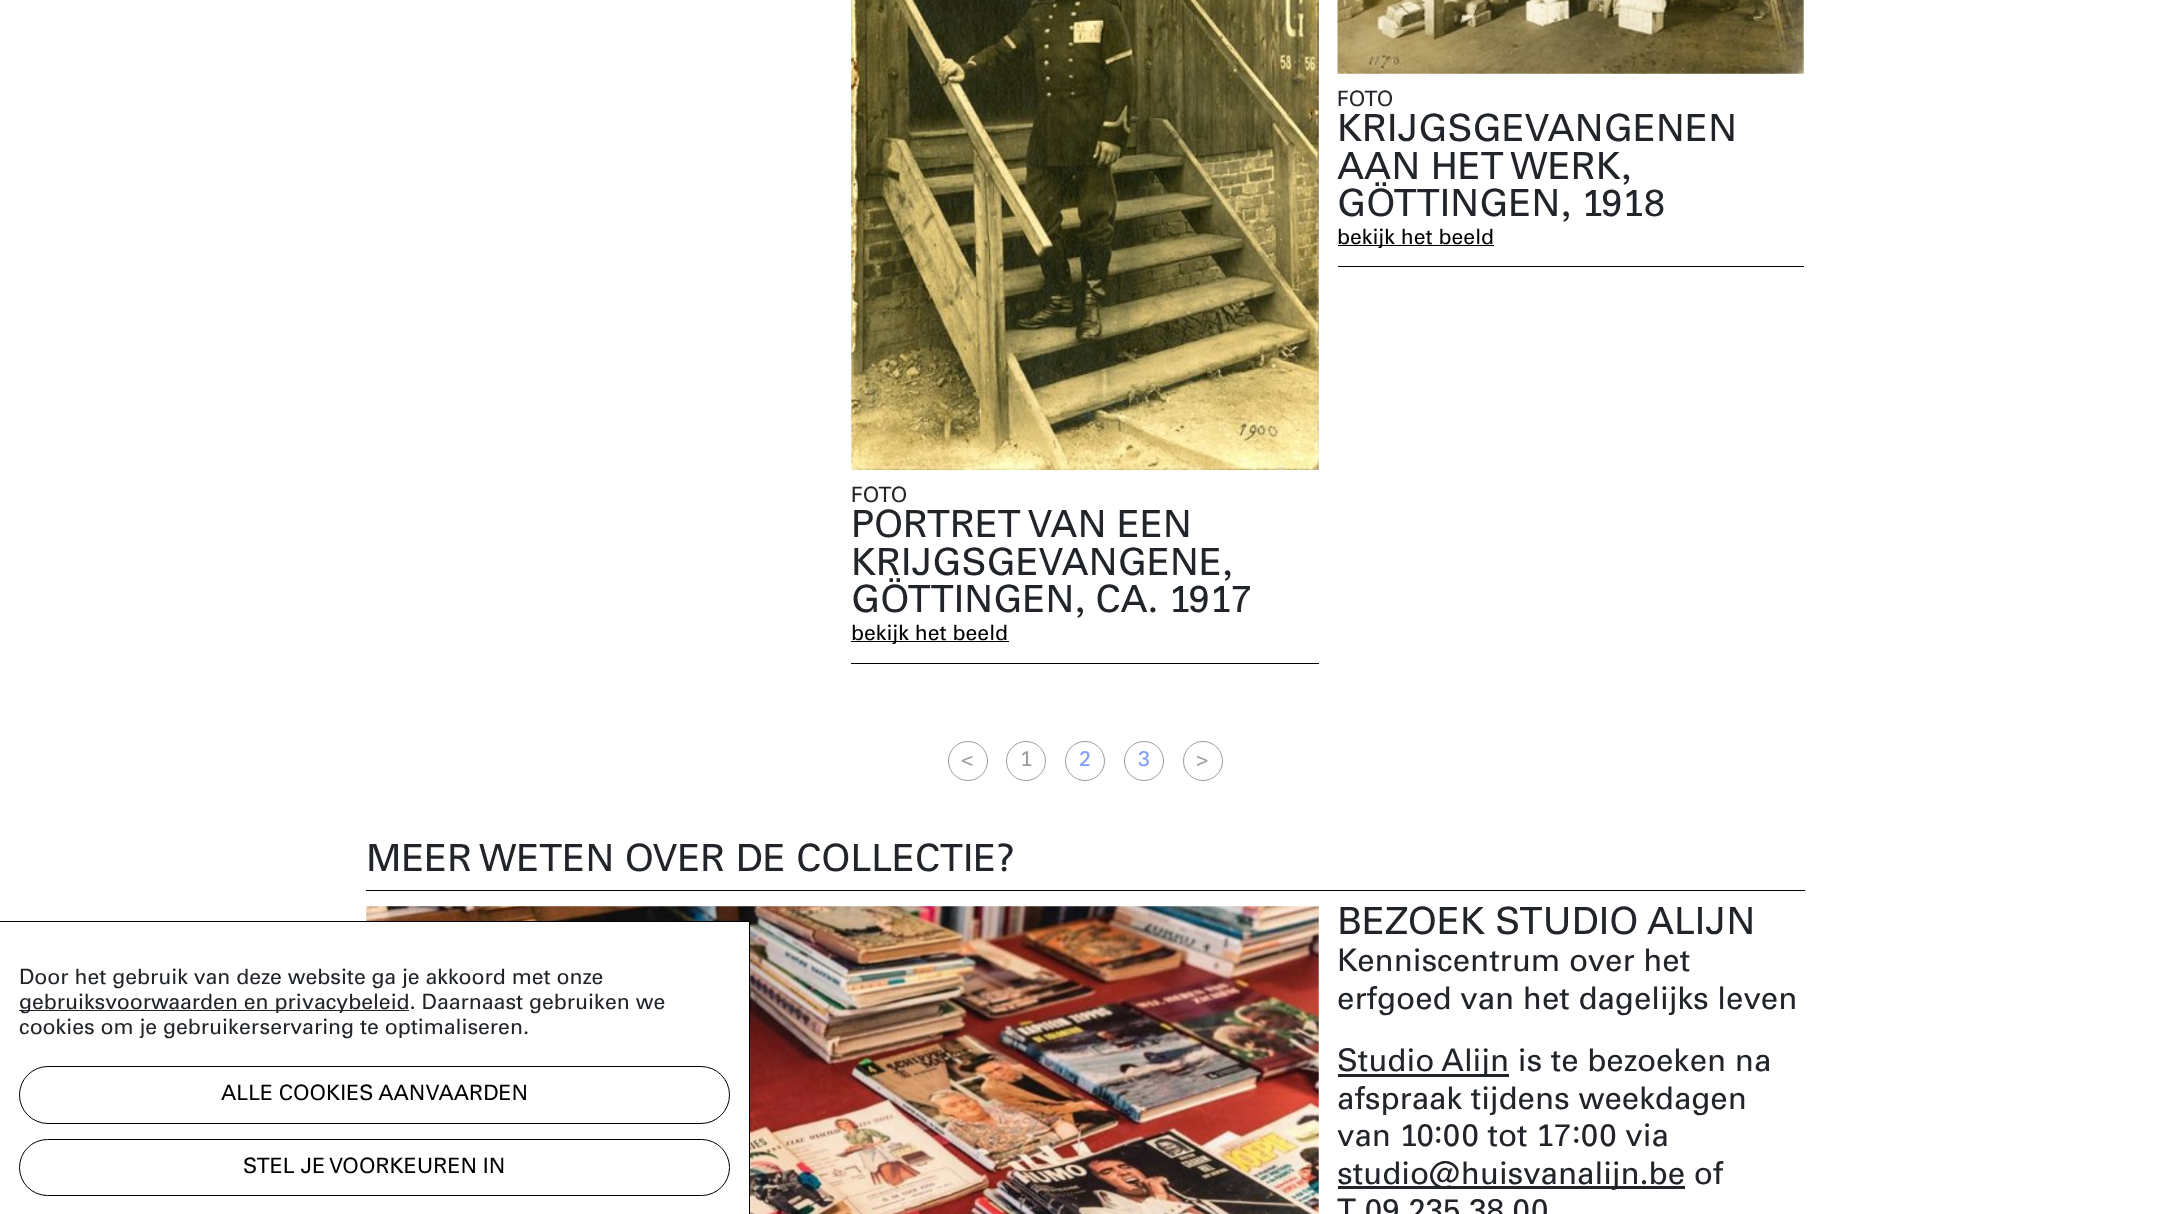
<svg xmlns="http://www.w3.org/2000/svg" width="2169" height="1214">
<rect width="100%" height="100%" fill="#fff"/>
<rect x="1338" y="266" width="466" height="1" fill="#000"/>
<image x="1337" y="0" width="467" height="74" href="media/1.png"/>
<text x="1337" y="106" style="font-family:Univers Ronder;font-size:21.25px;fill:#212529">FOTO</text>
<text x="1337" y="141" style="font-family:Univers Ronder;font-size:37.5px;fill:#212529">KRIJGSGEVANGENEN</text>
<text x="1337" y="179" style="font-family:Univers Ronder;font-size:37.5px;fill:#212529">AAN HET WERK,</text>
<text x="1337" y="216" style="font-family:Univers Ronder;font-size:37.5px;fill:#212529">GÖTTINGEN, 1918</text>
<rect x="1338" y="245" width="156" height="1" fill="#000"/>
<text x="1337" y="244" style="font-family:Univers Ronder;font-size:21.25px;fill:#000">bekijk het beeld</text>
<rect x="851" y="663" width="468" height="1" fill="#000"/>
<image x="851" y="0" width="468" height="470" href="media/2.png"/>
<text x="851" y="502" style="font-family:Univers Ronder;font-size:21.25px;fill:#212529">FOTO</text>
<text x="851" y="537" style="font-family:Univers Ronder;font-size:37.5px;fill:#212529">PORTRET VAN EEN</text>
<text x="851" y="575" style="font-family:Univers Ronder;font-size:37.5px;fill:#212529">KRIJGSGEVANGENE,</text>
<text x="851" y="612" style="font-family:Univers Ronder;font-size:37.5px;fill:#212529">GÖTTINGEN, CA. 1917</text>
<rect x="851" y="641" width="158" height="1" fill="#000"/>
<text x="851" y="640" style="font-family:Univers Ronder;font-size:21.25px;fill:#000">bekijk het beeld</text>
<circle cx="968" cy="761" r="19.5" fill="none" stroke="#9d9d9d"/>
<text x="961" y="766" style="font-family:Univers Ronder;font-size:21.25px;fill:#9d9d9d">&lt;</text>
<circle cx="1026" cy="761" r="19.5" fill="none" stroke="#9d9d9d"/>
<text x="1020" y="766" style="font-family:Univers Ronder;font-size:21.25px;fill:#9d9d9d">1</text>
<circle cx="1085" cy="761" r="19.5" fill="none" stroke="#9d9d9d"/>
<text x="1079" y="766" style="font-family:Univers Ronder;font-size:21.25px;fill:#80a0ff">2</text>
<circle cx="1144" cy="761" r="19.5" fill="none" stroke="#9d9d9d"/>
<text x="1138" y="766" style="font-family:Univers Ronder;font-size:21.25px;fill:#80a0ff">3</text>
<circle cx="1203" cy="761" r="19.5" fill="none" stroke="#9d9d9d"/>
<text x="1196" y="766" style="font-family:Univers Ronder;font-size:21.25px;fill:#9d9d9d">&gt;</text>
<rect x="366" y="890" width="1439" height="1" fill="#000"/>
<text x="366" y="871" style="font-family:Univers Ronder;font-size:37.5px;fill:#212529">MEER WETEN OVER DE COLLECTIE?</text>
<image x="366" y="906" width="953" height="308" href="media/3.png"/>
<rect x="366" y="922" width="383" height="292" fill="#fff"/>
<rect y="921" width="750" height="1" fill="#000"/>
<rect x="749" y="921" width="1" height="293" fill="#000"/>
<text x="19" y="984" style="font-family:Univers Ronder;font-size:21.25px;fill:#212529">Door het gebruik van deze website ga je akkoord met onze</text>
<rect x="19" y="1010" width="390" height="1" fill="#212529"/>
<text x="19" y="1009" style="font-family:Univers Ronder;font-size:21.25px;fill:#212529">gebruiksvoorwaarden en privacybeleid. Daarnaast gebruiken we</text>
<text x="19" y="1034" style="font-family:Univers Ronder;font-size:21.25px;fill:#212529">cookies om je gebruikerservaring te optimaliseren.</text>
<rect x="19.5" y="1066.5" width="710" height="57" rx="28.5" fill="none" stroke="#000"/>
<text x="221" y="1100" style="font-family:Univers Ronder;font-size:21.25px;fill:#000">ALLE COOKIES AANVAARDEN</text>
<rect x="19.5" y="1139.5" width="710" height="56" rx="28" fill="none" stroke="#000"/>
<text x="243" y="1173" style="font-family:Univers Ronder;font-size:21.25px;fill:#000">STEL JE VOORKEUREN IN</text>
<text x="1337" y="934" style="font-family:Univers Ronder;font-size:37.5px;fill:#212529">BEZOEK STUDIO ALIJN</text>
<text x="1337" y="971" style="font-family:Univers Ronder;font-size:31.25px;fill:#212529">Kenniscentrum over het</text>
<text x="1337" y="1009" style="font-family:Univers Ronder;font-size:31.25px;fill:#212529">erfgoed van het dagelijks leven</text>
<rect x="1338" y="1074" width="171" height="3" fill="#212529"/>
<text x="1337" y="1071" style="font-family:Univers Ronder;font-size:31.25px;fill:#212529">Studio Alijn is te bezoeken na</text>
<text x="1337" y="1109" style="font-family:Univers Ronder;font-size:31.25px;fill:#212529">afspraak tijdens weekdagen</text>
<text x="1337" y="1146" style="font-family:Univers Ronder;font-size:31.25px;fill:#212529">van 10:00 tot 17:00 via</text>
<rect x="1338" y="1186" width="347" height="3" fill="#212529"/>
<text x="1337" y="1184" style="font-family:Univers Ronder;font-size:31.25px;fill:#212529">studio@huisvanalijn.be of</text>
<text x="1337" y="1221" style="font-family:Univers Ronder;font-size:31.25px;fill:#212529">T 09 235 38 00</text>
</svg>
